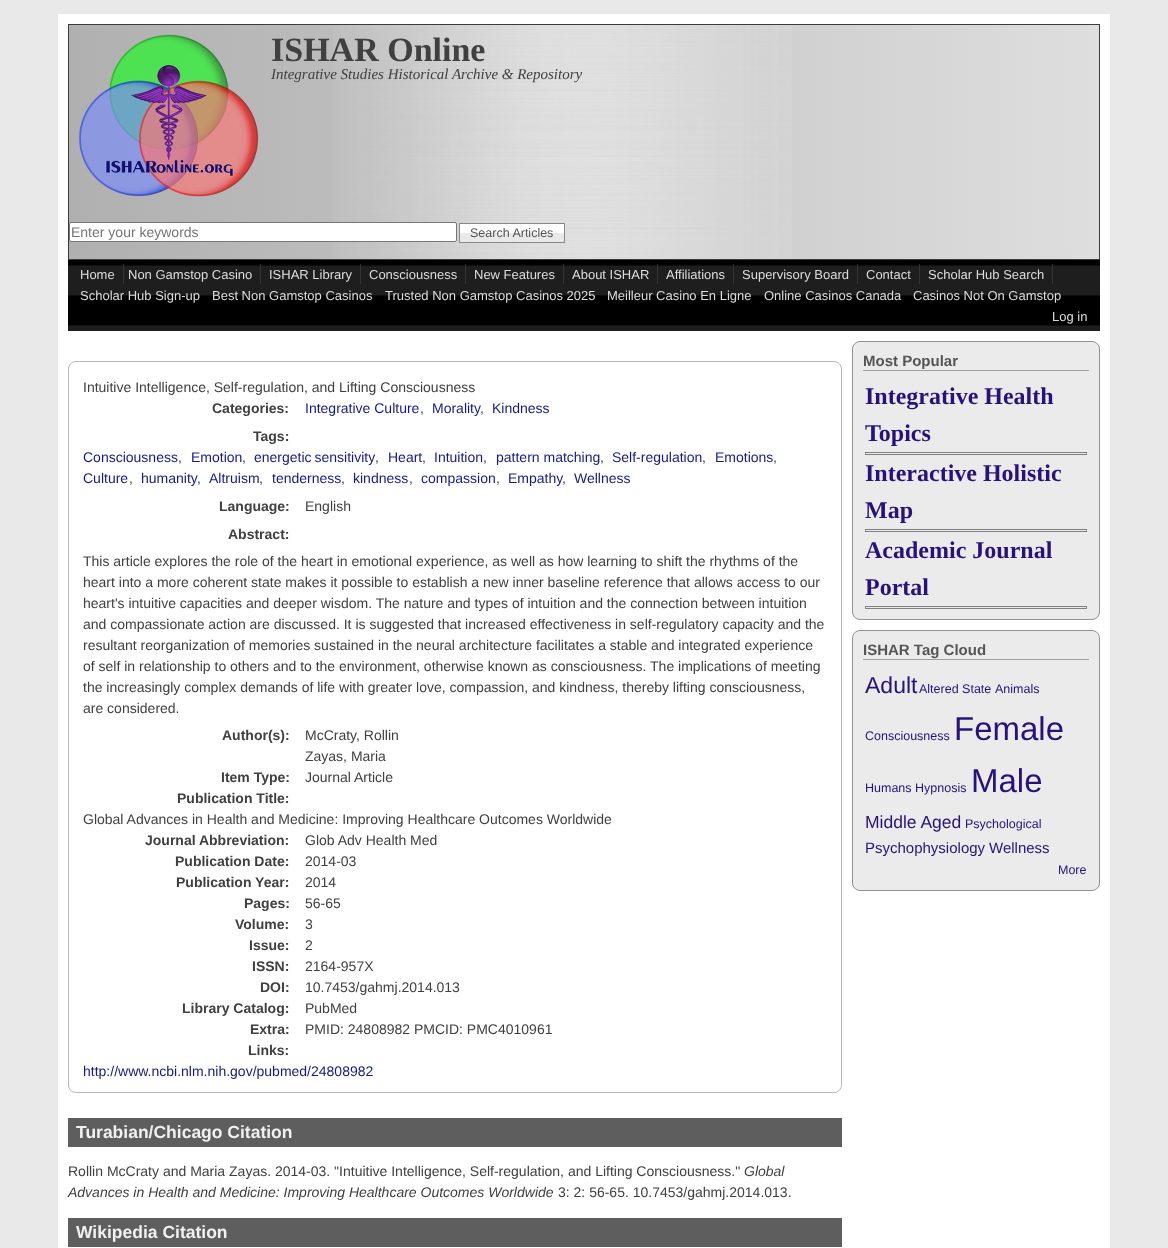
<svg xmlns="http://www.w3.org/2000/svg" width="1168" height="1248">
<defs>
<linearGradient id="g1" gradientUnits="userSpaceOnUse" x1="69" y1="142" x2="1099" y2="142"><stop offset="0" stop-color="#b0b0b0"/><stop offset="1" stop-color="#dedede"/></linearGradient>
</defs>
<rect width="100%" height="100%" fill="#e9e9e9"/>
<rect x="58" y="14" width="1052" height="1234" fill="#fff"/>
<rect x="69" y="25" width="1030" height="234" fill="url(#g1)"/>
<rect x="68.5" y="24.5" width="1031" height="235" fill="none" stroke="#3b3b3b"/>
<image x="333" y="25" width="459" height="234" href="media/1.png"/>
<image x="79" y="34" width="180" height="163" href="media/2.png"/>
<text x="271" y="61" style="font-family:Liberation Serif;font-size:34px;font-weight:bold;fill:#404040">ISHAR Online</text>
<text x="271" y="79" style="font-family:Liberation Serif;font-size:15px;font-style:italic;fill:#404040">Integrative Studies Historical Archive &amp; Repository</text>
<rect x="69.5" y="222.5" width="387" height="19" rx="1.5" fill="#fff" stroke="#767676"/>
<text x="71" y="237" style="font-family:Liberation Sans;font-size:14px;fill:#757575">Enter your keywords</text>
<rect x="460" y="224" width="104" height="9" fill="#fff"/>
<rect x="460" y="233" width="104" height="9" fill="#e9e9e9"/>
<rect x="459.5" y="223.5" width="105" height="19" fill="none" stroke="#888"/>
<text x="470" y="237" style="font-family:Liberation Sans;font-size:12.5px;fill:#555">Search Articles</text>
<image x="68" y="260" width="1032" height="71" href="media/3.png"/>
<text x="80" y="279" style="font-family:Liberation Sans;font-size:13px;fill:#ddd">Home</text>
<rect x="123" y="264" width="1" height="20" fill="#333"/>
<text x="128" y="279" style="font-family:Liberation Sans;font-size:13px;fill:#ddd">Non Gamstop Casino</text>
<rect x="260" y="264" width="1" height="20" fill="#333"/>
<text x="269" y="279" style="font-family:Liberation Sans;font-size:13px;fill:#ddd">ISHAR Library</text>
<rect x="360" y="264" width="1" height="20" fill="#333"/>
<text x="369" y="279" style="font-family:Liberation Sans;font-size:13px;fill:#ddd">Consciousness</text>
<rect x="465" y="264" width="1" height="20" fill="#333"/>
<text x="474" y="279" style="font-family:Liberation Sans;font-size:13px;fill:#ddd">New Features</text>
<rect x="563" y="264" width="1" height="20" fill="#333"/>
<text x="572" y="279" style="font-family:Liberation Sans;font-size:13px;fill:#ddd">About ISHAR</text>
<rect x="657" y="264" width="1" height="20" fill="#333"/>
<text x="666" y="279" style="font-family:Liberation Sans;font-size:13px;fill:#ddd">Affiliations</text>
<rect x="733" y="264" width="1" height="20" fill="#333"/>
<text x="742" y="279" style="font-family:Liberation Sans;font-size:13px;fill:#ddd">Supervisory Board</text>
<rect x="857" y="264" width="1" height="20" fill="#333"/>
<text x="866" y="279" style="font-family:Liberation Sans;font-size:13px;fill:#ddd">Contact</text>
<rect x="919" y="264" width="1" height="20" fill="#333"/>
<text x="928" y="279" style="font-family:Liberation Sans;font-size:13px;fill:#ddd">Scholar Hub Search</text>
<rect x="1052" y="264" width="1" height="20" fill="#333"/>
<text x="80" y="300" style="font-family:Liberation Sans;font-size:13px;fill:#ddd">Scholar Hub Sign-up</text>
<text x="212" y="300" style="font-family:Liberation Sans;font-size:13px;fill:#ddd">Best Non Gamstop Casinos</text>
<text x="385" y="300" style="font-family:Liberation Sans;font-size:13px;fill:#ddd">Trusted Non Gamstop Casinos 2025</text>
<text x="607" y="300" style="font-family:Liberation Sans;font-size:13px;fill:#ddd">Meilleur Casino En Ligne</text>
<text x="764" y="300" style="font-family:Liberation Sans;font-size:13px;fill:#ddd">Online Casinos Canada</text>
<text x="913" y="300" style="font-family:Liberation Sans;font-size:13px;fill:#ddd">Casinos Not On Gamstop</text>
<text x="1052" y="321" style="font-family:Liberation Sans;font-size:13px;fill:#ddd">Log in</text>
<rect x="68.5" y="361.5" width="773" height="731" rx="7.5" fill="none" stroke="#b8b8b8"/>
<text x="83" y="392" style="font-family:Liberation Sans;font-size:14px;fill:#404040">Intuitive Intelligence, Self-regulation, and Lifting Consciousness</text>
<text x="212" y="413" style="font-family:Liberation Sans;font-size:14px;font-weight:bold;fill:#404040">Categories:</text>
<text x="305" y="413" style="font-family:Liberation Sans;font-size:14px;fill:#141a8a">Integrative Culture</text>
<text x="420" y="413" style="font-family:Liberation Sans;font-size:14px;fill:#404040">,</text>
<text x="432" y="413" style="font-family:Liberation Sans;font-size:14px;fill:#141a8a">Morality</text>
<text x="480" y="413" style="font-family:Liberation Sans;font-size:14px;fill:#404040">,</text>
<text x="492" y="413" style="font-family:Liberation Sans;font-size:14px;fill:#141a8a">Kindness</text>
<text x="253" y="441" style="font-family:Liberation Sans;font-size:14px;font-weight:bold;fill:#404040">Tags:</text>
<text x="83" y="462" style="font-family:Liberation Sans;font-size:14px;fill:#141a8a">Consciousness</text>
<text x="178" y="462" style="font-family:Liberation Sans;font-size:14px;fill:#404040">,</text>
<text x="191" y="462" style="font-family:Liberation Sans;font-size:14px;fill:#141a8a">Emotion</text>
<text x="242" y="462" style="font-family:Liberation Sans;font-size:14px;fill:#404040">,</text>
<text x="254" y="462" word-spacing="-1" style="font-family:Liberation Sans;font-size:14px;fill:#141a8a">energetic sensitivity</text>
<text x="375" y="462" style="font-family:Liberation Sans;font-size:14px;fill:#404040">,</text>
<text x="388" y="462" style="font-family:Liberation Sans;font-size:14px;fill:#141a8a">Heart</text>
<text x="422" y="462" style="font-family:Liberation Sans;font-size:14px;fill:#404040">,</text>
<text x="434" y="462" style="font-family:Liberation Sans;font-size:14px;fill:#141a8a">Intuition</text>
<text x="483" y="462" style="font-family:Liberation Sans;font-size:14px;fill:#404040">,</text>
<text x="496" y="462" style="font-family:Liberation Sans;font-size:14px;fill:#141a8a">pattern matching</text>
<text x="600" y="462" style="font-family:Liberation Sans;font-size:14px;fill:#404040">,</text>
<text x="612" y="462" style="font-family:Liberation Sans;font-size:14px;fill:#141a8a">Self-regulation</text>
<text x="702" y="462" style="font-family:Liberation Sans;font-size:14px;fill:#404040">,</text>
<text x="715" y="462" style="font-family:Liberation Sans;font-size:14px;fill:#141a8a">Emotions</text>
<text x="773" y="462" style="font-family:Liberation Sans;font-size:14px;fill:#404040">,</text>
<text x="83" y="483" style="font-family:Liberation Sans;font-size:14px;fill:#141a8a">Culture</text>
<text x="129" y="483" style="font-family:Liberation Sans;font-size:14px;fill:#404040">,</text>
<text x="141" y="483" style="font-family:Liberation Sans;font-size:14px;fill:#141a8a">humanity</text>
<text x="197" y="483" style="font-family:Liberation Sans;font-size:14px;fill:#404040">,</text>
<text x="209" y="483" style="font-family:Liberation Sans;font-size:14px;fill:#141a8a">Altruism</text>
<text x="259" y="483" style="font-family:Liberation Sans;font-size:14px;fill:#404040">,</text>
<text x="272" y="483" style="font-family:Liberation Sans;font-size:14px;fill:#141a8a">tenderness</text>
<text x="341" y="483" style="font-family:Liberation Sans;font-size:14px;fill:#404040">,</text>
<text x="353" y="483" style="font-family:Liberation Sans;font-size:14px;fill:#141a8a">kindness</text>
<text x="409" y="483" style="font-family:Liberation Sans;font-size:14px;fill:#404040">,</text>
<text x="421" y="483" style="font-family:Liberation Sans;font-size:14px;fill:#141a8a">compassion</text>
<text x="496" y="483" style="font-family:Liberation Sans;font-size:14px;fill:#404040">,</text>
<text x="508" y="483" style="font-family:Liberation Sans;font-size:14px;fill:#141a8a">Empathy</text>
<text x="562" y="483" style="font-family:Liberation Sans;font-size:14px;fill:#404040">,</text>
<text x="574" y="483" style="font-family:Liberation Sans;font-size:14px;fill:#141a8a">Wellness</text>
<text x="219" y="511" style="font-family:Liberation Sans;font-size:14px;font-weight:bold;fill:#404040">Language:</text>
<text x="305" y="511" style="font-family:Liberation Sans;font-size:14px;fill:#404040">English</text>
<text x="228" y="539" style="font-family:Liberation Sans;font-size:14px;font-weight:bold;fill:#404040">Abstract:</text>
<text x="83" y="566" style="font-family:Liberation Sans;font-size:14px;fill:#404040">This article explores the role of the heart in emotional experience, as well as how learning to shift the rhythms of the</text>
<text x="83" y="587" style="font-family:Liberation Sans;font-size:14px;fill:#404040">heart into a more coherent state makes it possible to establish a new inner baseline reference that allows access to our</text>
<text x="83" y="608" style="font-family:Liberation Sans;font-size:14px;fill:#404040">heart's intuitive capacities and deeper wisdom. The nature and types of intuition and the connection between intuition</text>
<text x="83" y="629" style="font-family:Liberation Sans;font-size:14px;fill:#404040">and compassionate action are discussed. It is suggested that increased effectiveness in self-regulatory capacity and the</text>
<text x="83" y="650" style="font-family:Liberation Sans;font-size:14px;fill:#404040">resultant reorganization of memories sustained in the neural architecture facilitates a stable and integrated experience</text>
<text x="83" y="671" style="font-family:Liberation Sans;font-size:14px;fill:#404040">of self in relationship to others and to the environment, otherwise known as consciousness. The implications of meeting</text>
<text x="83" y="692" style="font-family:Liberation Sans;font-size:14px;fill:#404040">the increasingly complex demands of life with greater love, compassion, and kindness, thereby lifting consciousness,</text>
<text x="83" y="713" style="font-family:Liberation Sans;font-size:14px;fill:#404040">are considered.</text>
<text x="222" y="740" style="font-family:Liberation Sans;font-size:14px;font-weight:bold;fill:#404040">Author(s):</text>
<text x="305" y="740" style="font-family:Liberation Sans;font-size:14px;fill:#404040">McCraty, Rollin</text>
<text x="305" y="761" style="font-family:Liberation Sans;font-size:14px;fill:#404040">Zayas, Maria</text>
<text x="221" y="782" style="font-family:Liberation Sans;font-size:14px;font-weight:bold;fill:#404040">Item Type:</text>
<text x="305" y="782" style="font-family:Liberation Sans;font-size:14px;fill:#404040">Journal Article</text>
<text x="177" y="803" style="font-family:Liberation Sans;font-size:14px;font-weight:bold;fill:#404040">Publication Title:</text>
<text x="83" y="824" style="font-family:Liberation Sans;font-size:14px;fill:#404040">Global Advances in Health and Medicine: Improving Healthcare Outcomes Worldwide</text>
<text x="145" y="845" style="font-family:Liberation Sans;font-size:14px;font-weight:bold;fill:#404040">Journal Abbreviation:</text>
<text x="305" y="845" style="font-family:Liberation Sans;font-size:14px;fill:#404040">Glob Adv Health Med</text>
<text x="175" y="866" style="font-family:Liberation Sans;font-size:14px;font-weight:bold;fill:#404040">Publication Date:</text>
<text x="305" y="866" style="font-family:Liberation Sans;font-size:14px;fill:#404040">2014-03</text>
<text x="176" y="887" style="font-family:Liberation Sans;font-size:14px;font-weight:bold;fill:#404040">Publication Year:</text>
<text x="305" y="887" style="font-family:Liberation Sans;font-size:14px;fill:#404040">2014</text>
<text x="244" y="908" style="font-family:Liberation Sans;font-size:14px;font-weight:bold;fill:#404040">Pages:</text>
<text x="305" y="908" style="font-family:Liberation Sans;font-size:14px;fill:#404040">56-65</text>
<text x="235" y="929" style="font-family:Liberation Sans;font-size:14px;font-weight:bold;fill:#404040">Volume:</text>
<text x="305" y="929" style="font-family:Liberation Sans;font-size:14px;fill:#404040">3</text>
<text x="249" y="950" style="font-family:Liberation Sans;font-size:14px;font-weight:bold;fill:#404040">Issue:</text>
<text x="305" y="950" style="font-family:Liberation Sans;font-size:14px;fill:#404040">2</text>
<text x="252" y="971" style="font-family:Liberation Sans;font-size:14px;font-weight:bold;fill:#404040">ISSN:</text>
<text x="305" y="971" style="font-family:Liberation Sans;font-size:14px;fill:#404040">2164-957X</text>
<text x="260" y="992" style="font-family:Liberation Sans;font-size:14px;font-weight:bold;fill:#404040">DOI:</text>
<text x="305" y="992" style="font-family:Liberation Sans;font-size:14px;fill:#404040">10.7453/gahmj.2014.013</text>
<text x="182" y="1013" style="font-family:Liberation Sans;font-size:14px;font-weight:bold;fill:#404040">Library Catalog:</text>
<text x="305" y="1013" style="font-family:Liberation Sans;font-size:14px;fill:#404040">PubMed</text>
<text x="250" y="1034" style="font-family:Liberation Sans;font-size:14px;font-weight:bold;fill:#404040">Extra:</text>
<text x="305" y="1034" style="font-family:Liberation Sans;font-size:14px;fill:#404040">PMID: 24808982 PMCID: PMC4010961</text>
<text x="248" y="1055" style="font-family:Liberation Sans;font-size:14px;font-weight:bold;fill:#404040">Links:</text>
<text x="83" y="1076" style="font-family:Liberation Sans;font-size:14px;fill:#141a8a">http://www.ncbi.nlm.nih.gov/pubmed/24808982</text>
<rect x="68" y="1118" width="774" height="29" fill="#5e5e5e"/>
<text x="76" y="1138" style="font-family:Liberation Sans;font-size:17.5px;font-weight:bold;fill:#f1f1f1">Turabian/Chicago Citation</text>
<text x="68" y="1176" style="font-family:Liberation Sans;font-size:14px;fill:#404040">Rollin McCraty and Maria Zayas. 2014-03. "Intuitive Intelligence, Self-regulation, and Lifting Consciousness."</text>
<text x="744" y="1176" style="font-family:Liberation Sans;font-size:14px;font-style:italic;fill:#404040">Global</text>
<text x="68" y="1197" style="font-family:Liberation Sans;font-size:14px;font-style:italic;fill:#404040">Advances in Health and Medicine: Improving Healthcare Outcomes Worldwide</text>
<text x="558" y="1197" style="font-family:Liberation Sans;font-size:14px;fill:#404040">3: 2: 56-65. 10.7453/gahmj.2014.013.</text>
<rect x="68" y="1218" width="774" height="29" fill="#5e5e5e"/>
<text x="76" y="1238" style="font-family:Liberation Sans;font-size:17.5px;font-weight:bold;fill:#f1f1f1">Wikipedia Citation</text>
<rect x="852.5" y="341.5" width="247" height="278" rx="7.5" fill="#ebebeb" stroke="#929292"/>
<rect x="863" y="370" width="226" height="1" fill="#a1a1a1"/>
<text x="863" y="366" style="font-family:Liberation Sans;font-size:15px;font-weight:bold;fill:#555">Most Popular</text>
<text x="865" y="404" style="font-family:Liberation Serif;font-size:24px;font-weight:bold;fill:#27127c">Integrative Health</text>
<text x="865" y="441" style="font-family:Liberation Serif;font-size:24px;font-weight:bold;fill:#27127c">Topics</text>
<rect x="865.5" y="452.5" width="221" height="2" fill="none" stroke="#808080"/>
<text x="865" y="481" style="font-family:Liberation Serif;font-size:24px;font-weight:bold;fill:#27127c">Interactive Holistic</text>
<text x="865" y="518" style="font-family:Liberation Serif;font-size:24px;font-weight:bold;fill:#27127c">Map</text>
<rect x="865.5" y="529.5" width="221" height="2" fill="none" stroke="#808080"/>
<text x="865" y="558" style="font-family:Liberation Serif;font-size:24px;font-weight:bold;fill:#27127c">Academic Journal</text>
<text x="865" y="595" style="font-family:Liberation Serif;font-size:24px;font-weight:bold;fill:#27127c">Portal</text>
<rect x="865.5" y="606.5" width="221" height="2" fill="none" stroke="#808080"/>
<rect x="852.5" y="630.5" width="247" height="260" rx="7.5" fill="#ebebeb" stroke="#929292"/>
<rect x="863" y="659" width="226" height="1" fill="#a1a1a1"/>
<text x="863" y="655" style="font-family:Liberation Sans;font-size:15px;font-weight:bold;fill:#555">ISHAR Tag Cloud</text>
<text x="865" y="693" style="font-family:Liberation Sans;font-size:23px;fill:#27127c">Adult</text>
<text x="919" y="693" style="font-family:Liberation Sans;font-size:12.5px;fill:#27127c">Altered State</text>
<text x="995" y="693" style="font-family:Liberation Sans;font-size:12.5px;fill:#27127c">Animals</text>
<text x="865" y="740" style="font-family:Liberation Sans;font-size:12.5px;fill:#27127c">Consciousness</text>
<text x="954" y="740" style="font-family:Liberation Sans;font-size:33px;fill:#27127c">Female</text>
<text x="865" y="792" style="font-family:Liberation Sans;font-size:12.5px;fill:#27127c">Humans Hypnosis</text>
<text x="971" y="792" style="font-family:Liberation Sans;font-size:33px;fill:#27127c">Male</text>
<text x="865" y="828" style="font-family:Liberation Sans;font-size:17.5px;fill:#27127c">Middle Aged</text>
<text x="965" y="828" style="font-family:Liberation Sans;font-size:12.5px;fill:#27127c">Psychological</text>
<text x="865" y="853" style="font-family:Liberation Sans;font-size:15px;fill:#27127c">Psychophysiology</text>
<text x="989" y="853" style="font-family:Liberation Sans;font-size:15px;fill:#27127c">Wellness</text>
<text x="1058" y="874" style="font-family:Liberation Sans;font-size:12.5px;fill:#27127c">More</text>
</svg>
